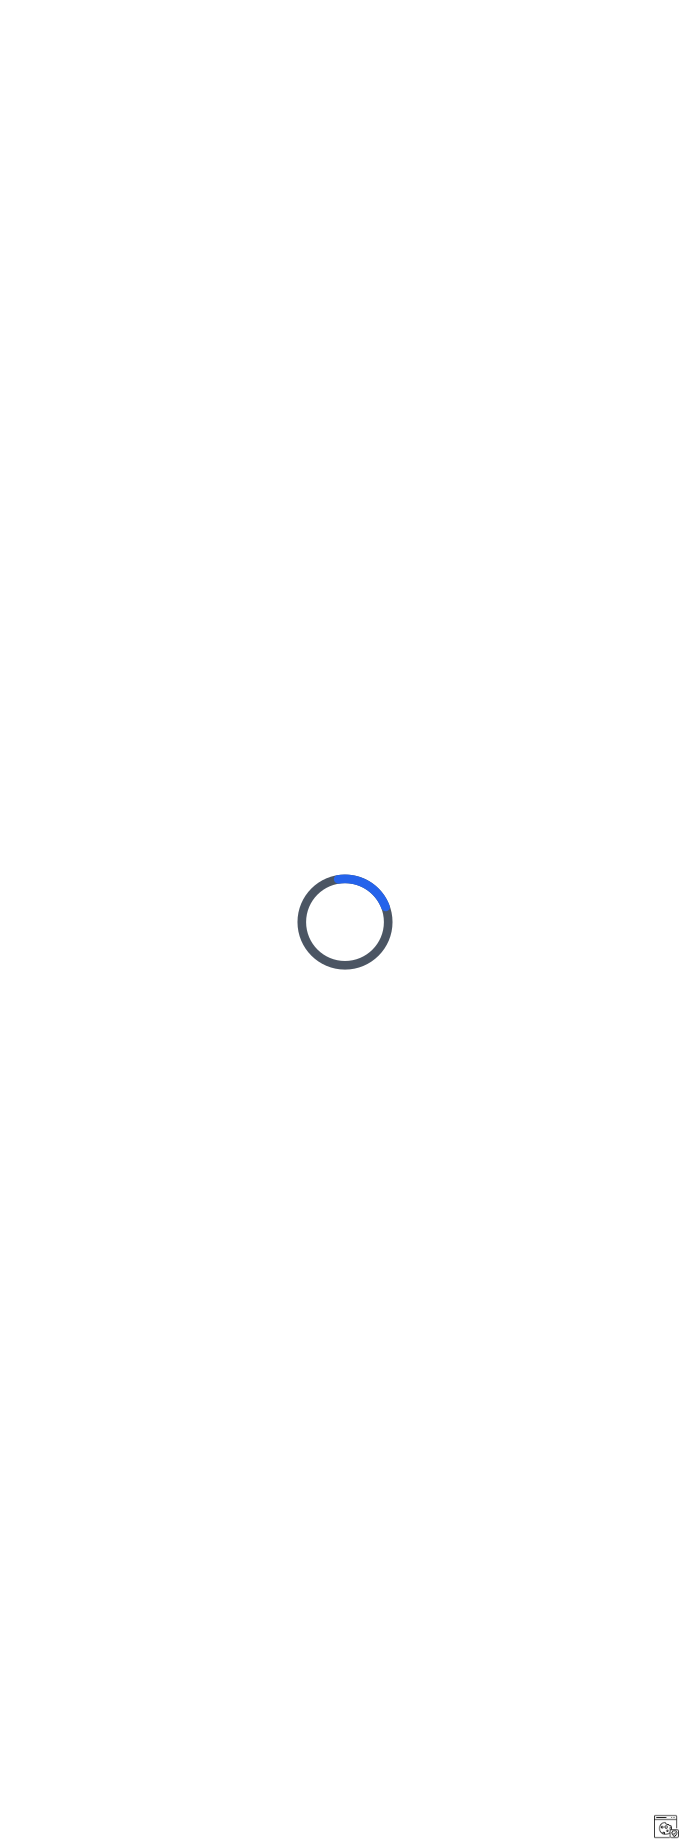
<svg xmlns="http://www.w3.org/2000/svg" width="689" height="1843">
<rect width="100%" height="100%" fill="#fff"/>
<image x="297" y="874" width="96" height="96" href="media/1.png"/>
<image x="654" y="1814" width="25" height="25" href="media/2.png"/>
</svg>
